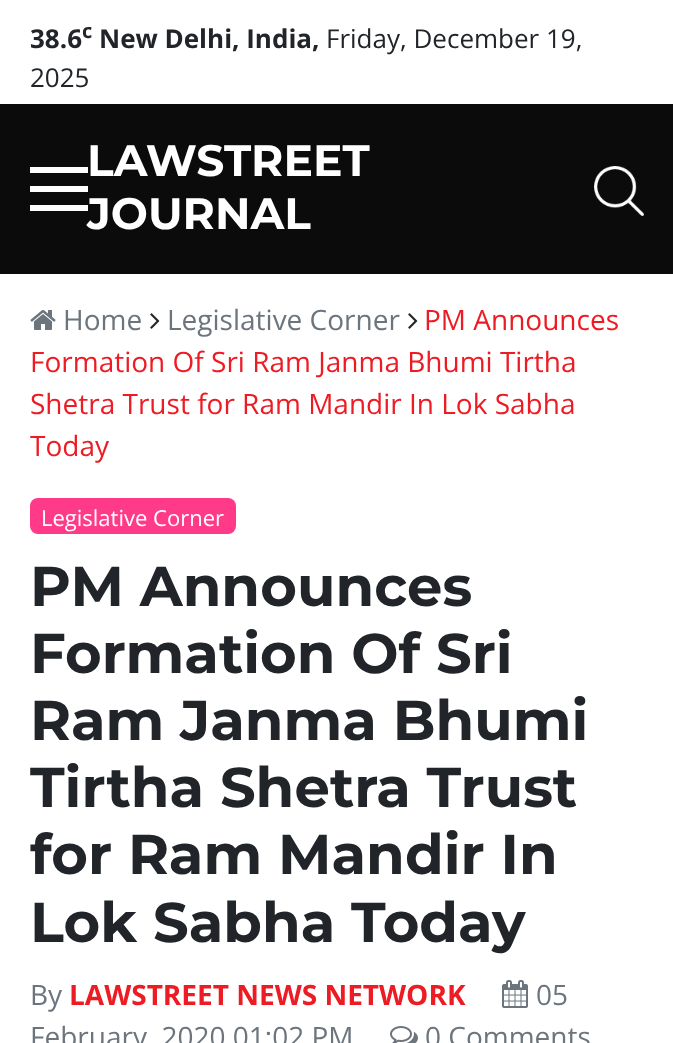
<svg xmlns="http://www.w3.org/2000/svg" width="673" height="1043">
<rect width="100%" height="100%" fill="#fff"/>
<text x="30" y="48" style="font-family:Open Sans;font-size:26px;font-weight:bold;fill:#212529">38.6</text>
<text x="82" y="38" style="font-family:Open Sans;font-size:20px;font-weight:bold;fill:#212529">c</text>
<text x="99" y="48" style="font-family:Open Sans;font-size:26px;font-weight:bold;fill:#212529">New Delhi, India,</text>
<text x="326" y="48" style="font-family:Open Sans;font-size:26px;fill:#212529">Friday, December 19,</text>
<text x="30" y="87" style="font-family:Open Sans;font-size:26px;fill:#212529">2025</text>
<rect y="104" width="673" height="170" fill="#0b0b0b"/>
<rect x="30" y="167" width="58" height="6" fill="#fff"/>
<rect x="30" y="186" width="58" height="6" fill="#fff"/>
<rect x="30" y="205" width="58" height="6" fill="#fff"/>
<text x="87" y="176" style="font-family:Montserrat;font-size:44px;font-weight:bold;fill:#fff">LAWSTREET</text>
<text x="87" y="229" style="font-family:Montserrat;font-size:44px;font-weight:bold;fill:#fff">JOURNAL</text>
<image x="594" y="166" width="50" height="50" href="media/1.png"/>
<image x="30" y="310" width="26" height="20" href="media/2.png"/>
<text x="63" y="330" style="font-family:Open Sans;font-size:28px;fill:#6c757d">Home</text>
<image x="150" y="313" width="10" height="16" href="media/3.png"/>
<text x="167" y="330" style="font-family:Open Sans;font-size:28px;fill:#6c757d">Legislative Corner</text>
<image x="408" y="313" width="10" height="16" href="media/3.png"/>
<text x="424" y="330" style="font-family:Open Sans;font-size:28px;fill:#ed1c24">PM Announces</text>
<text x="30" y="372" style="font-family:Open Sans;font-size:28px;fill:#ed1c24">Formation Of Sri Ram Janma Bhumi Tirtha</text>
<text x="30" y="414" style="font-family:Open Sans;font-size:28px;fill:#ed1c24">Shetra Trust for Ram Mandir In Lok Sabha</text>
<text x="30" y="456" style="font-family:Open Sans;font-size:28px;fill:#ed1c24">Today</text>
<rect x="30" y="498" width="206" height="36" rx="8" fill="#ff3b89"/>
<text x="41" y="526" style="font-family:Open Sans;font-size:22px;fill:#fff">Legislative Corner</text>
<text x="30" y="606" style="font-family:Montserrat;font-size:56px;font-weight:bold;fill:#212529">PM Announces</text>
<text x="30" y="673" style="font-family:Montserrat;font-size:56px;font-weight:bold;fill:#212529">Formation Of Sri</text>
<text x="30" y="740" style="font-family:Montserrat;font-size:56px;font-weight:bold;fill:#212529">Ram Janma Bhumi</text>
<text x="30" y="807" style="font-family:Montserrat;font-size:56px;font-weight:bold;fill:#212529">Tirtha Shetra Trust</text>
<text x="30" y="874" style="font-family:Montserrat;font-size:56px;font-weight:bold;fill:#212529">for Ram Mandir In</text>
<text x="30" y="942" style="font-family:Montserrat;font-size:56px;font-weight:bold;fill:#212529">Lok Sabha Today</text>
<text x="30" y="1005" style="font-family:Open Sans;font-size:28px;fill:#6c757d">By</text>
<text x="69" y="1005" style="font-family:Open Sans;font-size:28px;font-weight:bold;fill:#ed1c24">LAWSTREET NEWS NETWORK</text>
<image x="502" y="980" width="26" height="28" href="media/4.png"/>
<text x="536" y="1005" style="font-family:Open Sans;font-size:28px;fill:#6c757d">05</text>
<text x="30" y="1047" style="font-family:Open Sans;font-size:28px;fill:#6c757d">February, 2020 01:02 PM</text>
<image x="390" y="1026" width="28" height="17" href="media/5.png"/>
<text x="425" y="1047" style="font-family:Open Sans;font-size:28px;fill:#6c757d">0 Comments</text>
</svg>
